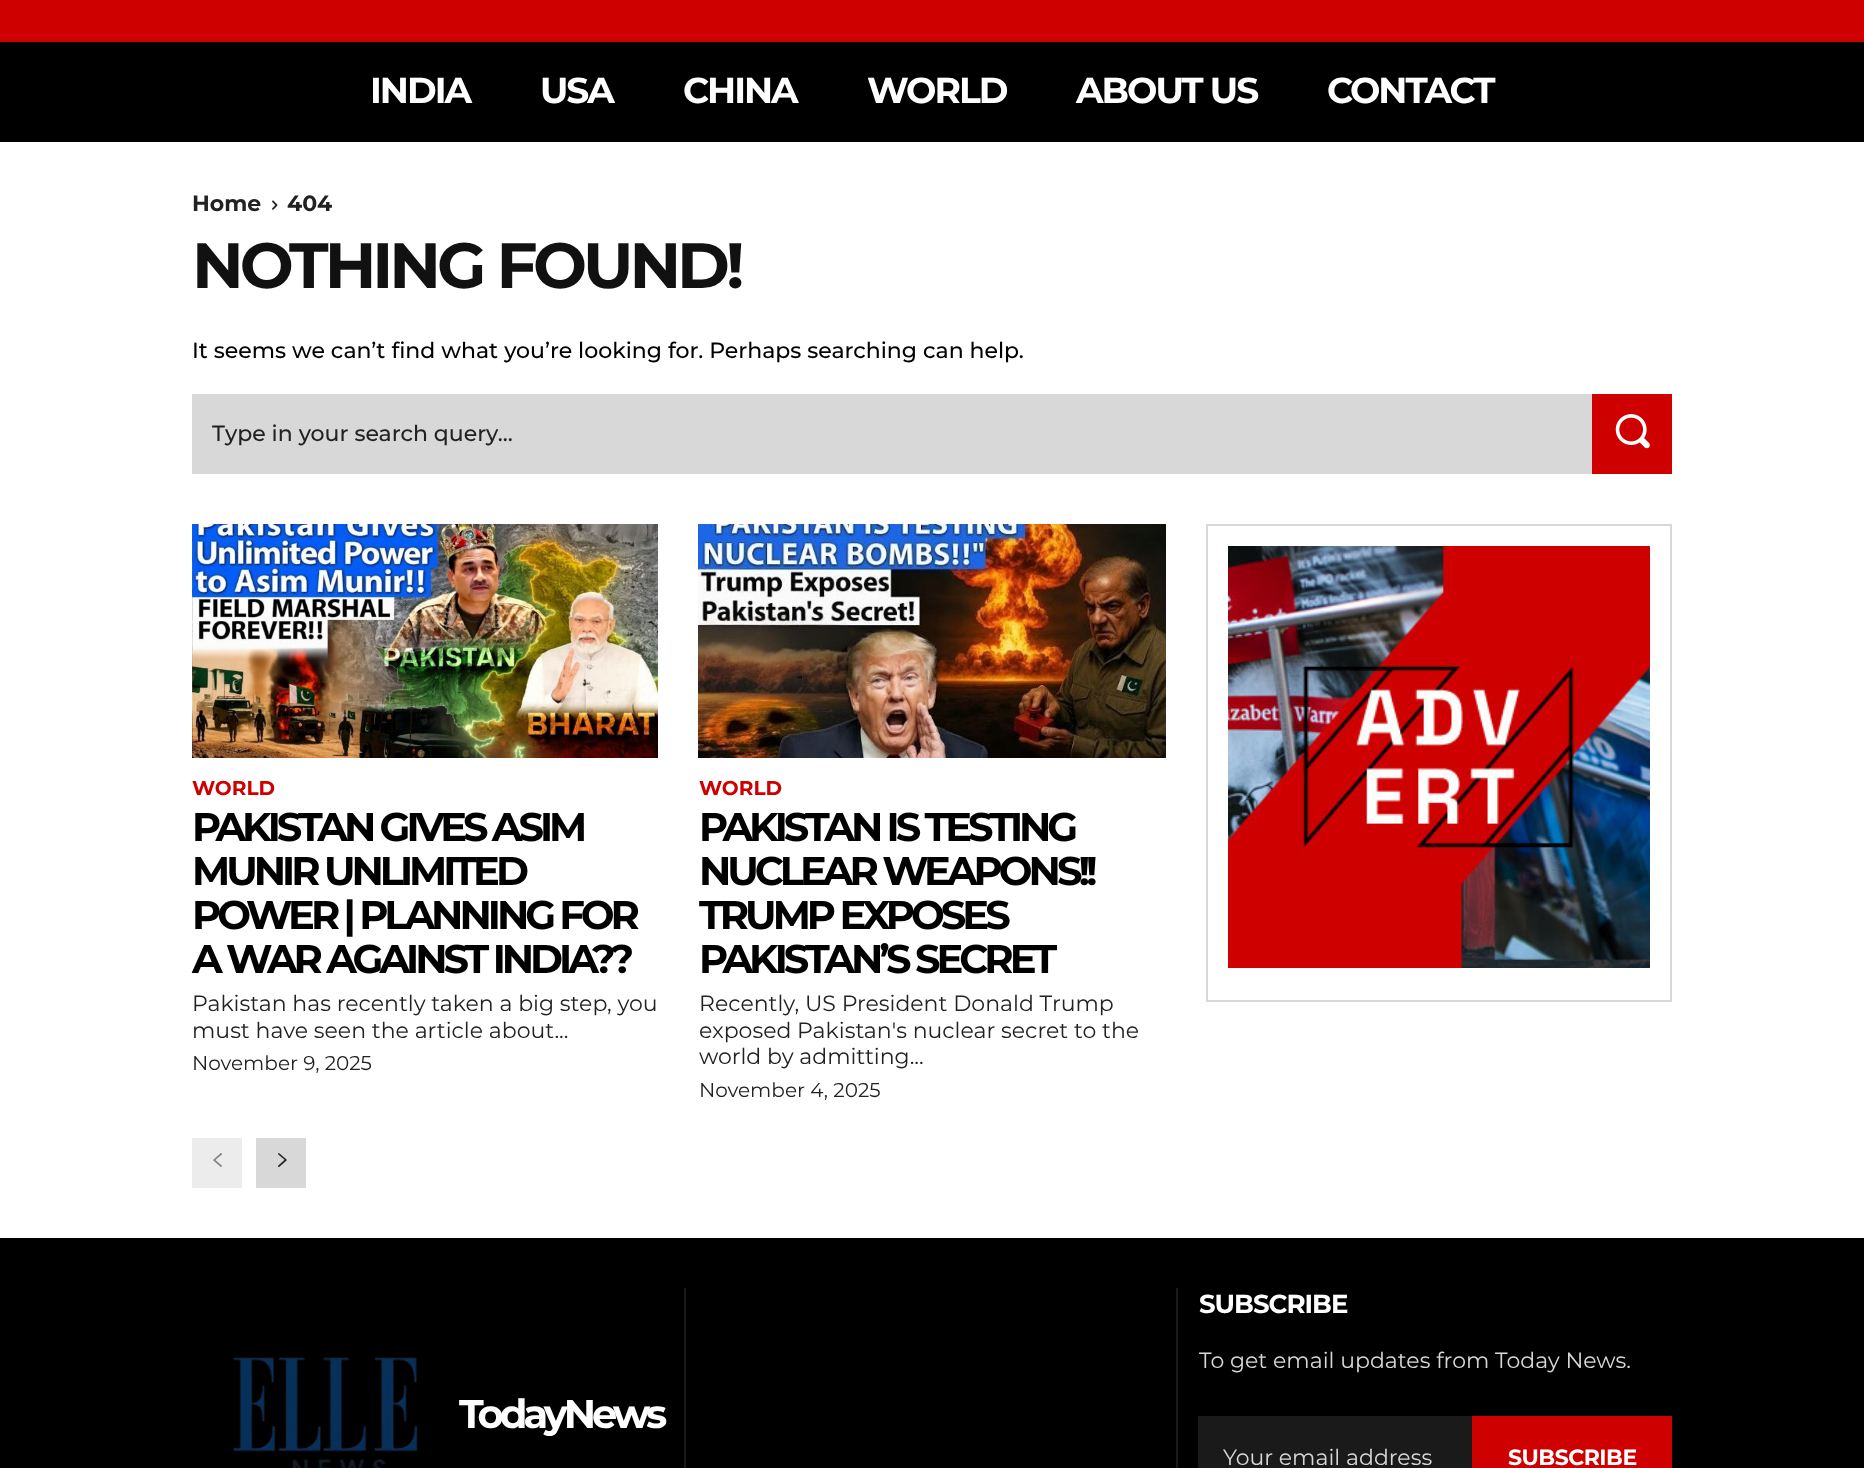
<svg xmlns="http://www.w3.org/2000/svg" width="1864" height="1468">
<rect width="100%" height="100%" fill="#fff"/>
<rect width="1864" height="42" fill="#ce0000"/>
<rect y="42" width="1864" height="100" fill="#000"/>
<text x="370" y="103" style="font-family:Montserrat;font-size:36px;font-weight:bold;letter-spacing:-2px;fill:#fff">INDIA</text>
<text x="540" y="103" style="font-family:Montserrat;font-size:36px;font-weight:bold;letter-spacing:-2px;fill:#fff">USA</text>
<text x="683" y="103" style="font-family:Montserrat;font-size:36px;font-weight:bold;letter-spacing:-2px;fill:#fff">CHINA</text>
<text x="867" y="103" style="font-family:Montserrat;font-size:36px;font-weight:bold;letter-spacing:-2px;fill:#fff">WORLD</text>
<text x="1076" y="103" style="font-family:Montserrat;font-size:36px;font-weight:bold;letter-spacing:-2px;fill:#fff">ABOUT US</text>
<text x="1327" y="103" style="font-family:Montserrat;font-size:36px;font-weight:bold;letter-spacing:-2px;fill:#fff">CONTACT</text>
<text x="192" y="211" style="font-family:Montserrat;font-size:22px;font-weight:bold;fill:#222">Home</text>
<image x="272" y="200" width="6" height="10" href="media/1.png"/>
<text x="287" y="211" style="font-family:Montserrat;font-size:22px;font-weight:bold;fill:#222">404</text>
<text x="192" y="288" style="font-family:Montserrat;font-size:64px;font-weight:bold;letter-spacing:-4px;fill:#111">NOTHING FOUND!</text>
<text x="192" y="358" style="font-family:Montserrat;font-size:22px;font-weight:500;fill:#000">It seems we can’t find what you’re looking for. Perhaps searching can help.</text>
<rect x="192" y="394" width="1400" height="80" fill="#d8d8d8"/>
<text x="212" y="441" style="font-family:Montserrat;font-size:22px;font-weight:500;fill:#222">Type in your search query...</text>
<rect x="1592" y="394" width="80" height="80" fill="#ce0000"/>
<image x="1615" y="414" width="35" height="35" href="media/2.png"/>
<image x="192" y="524" width="466" height="234" href="media/3.png"/>
<text x="192" y="795" style="font-family:Montserrat;font-size:20px;font-weight:bold;fill:#ce0000">WORLD</text>
<text x="192" y="841" style="font-family:Montserrat;font-size:40px;font-weight:bold;letter-spacing:-4px;fill:#000">PAKISTAN GIVES ASIM</text>
<text x="192" y="885" style="font-family:Montserrat;font-size:40px;font-weight:bold;letter-spacing:-4px;fill:#000">MUNIR UNLIMITED</text>
<text x="192" y="929" style="font-family:Montserrat;font-size:40px;font-weight:bold;letter-spacing:-4px;fill:#000">POWER | PLANNING FOR</text>
<text x="192" y="973" style="font-family:Montserrat;font-size:40px;font-weight:bold;letter-spacing:-4px;fill:#000">A WAR AGAINST INDIA??</text>
<text x="192" y="1011" style="font-family:Montserrat;font-size:22px;fill:#222">Pakistan has recently taken a big step, you</text>
<text x="192" y="1038" style="font-family:Montserrat;font-size:22px;fill:#222">must have seen the article about...</text>
<text x="192" y="1070" style="font-family:Montserrat;font-size:20px;fill:#222">November 9, 2025</text>
<image x="698" y="524" width="468" height="234" href="media/4.png"/>
<text x="699" y="795" style="font-family:Montserrat;font-size:20px;font-weight:bold;fill:#ce0000">WORLD</text>
<text x="699" y="841" style="font-family:Montserrat;font-size:40px;font-weight:bold;letter-spacing:-4px;fill:#000">PAKISTAN IS TESTING</text>
<text x="699" y="885" style="font-family:Montserrat;font-size:40px;font-weight:bold;letter-spacing:-4px;fill:#000">NUCLEAR WEAPONS!!</text>
<text x="699" y="929" style="font-family:Montserrat;font-size:40px;font-weight:bold;letter-spacing:-4px;fill:#000">TRUMP EXPOSES</text>
<text x="699" y="973" style="font-family:Montserrat;font-size:40px;font-weight:bold;letter-spacing:-4px;fill:#000">PAKISTAN’S SECRET</text>
<text x="699" y="1011" style="font-family:Montserrat;font-size:22px;fill:#222">Recently, US President Donald Trump</text>
<text x="699" y="1038" style="font-family:Montserrat;font-size:22px;fill:#222">exposed Pakistan's nuclear secret to the</text>
<text x="699" y="1064" style="font-family:Montserrat;font-size:22px;fill:#222">world by admitting...</text>
<text x="699" y="1097" style="font-family:Montserrat;font-size:20px;fill:#222">November 4, 2025</text>
<rect x="192" y="1138" width="50" height="50" fill="#ececec"/>
<image x="213" y="1153" width="9" height="14" href="media/5.png"/>
<rect x="256" y="1138" width="50" height="50" fill="#d8d8d8"/>
<image x="278" y="1153" width="9" height="14" href="media/6.png"/>
<rect x="1207" y="525" width="464" height="476" fill="none" stroke="#d8d8d8" stroke-width="2"/>
<image x="1228" y="546" width="422" height="422" href="media/7.png"/>
<rect y="1238" width="1864" height="230" fill="#000"/>
<rect x="684" y="1288" width="2" height="180" fill="#1a1a1a"/>
<image x="233" y="1357" width="185" height="111" href="media/8.png"/>
<text x="459" y="1428" style="font-family:Montserrat;font-size:40px;font-weight:bold;letter-spacing:-4px;fill:#fff">TodayNews</text>
<rect x="1176" y="1288" width="2" height="180" fill="#1a1a1a"/>
<text x="1199" y="1313" style="font-family:Montserrat;font-size:26px;font-weight:bold;letter-spacing:-1px;fill:#fff">SUBSCRIBE</text>
<text x="1199" y="1368" style="font-family:Montserrat;font-size:22px;fill:#d8d8d8">To get email updates from Today News.</text>
<rect x="1198" y="1416" width="274" height="52" fill="#1a1a1a"/>
<text x="1223" y="1465" style="font-family:Montserrat;font-size:22px;fill:#d8d8d8">Your email address</text>
<rect x="1472" y="1416" width="200" height="52" fill="#ce0000"/>
<text x="1508" y="1465" style="font-family:Montserrat;font-size:22px;font-weight:bold;letter-spacing:-0.5px;fill:#fff">SUBSCRIBE</text>
</svg>
